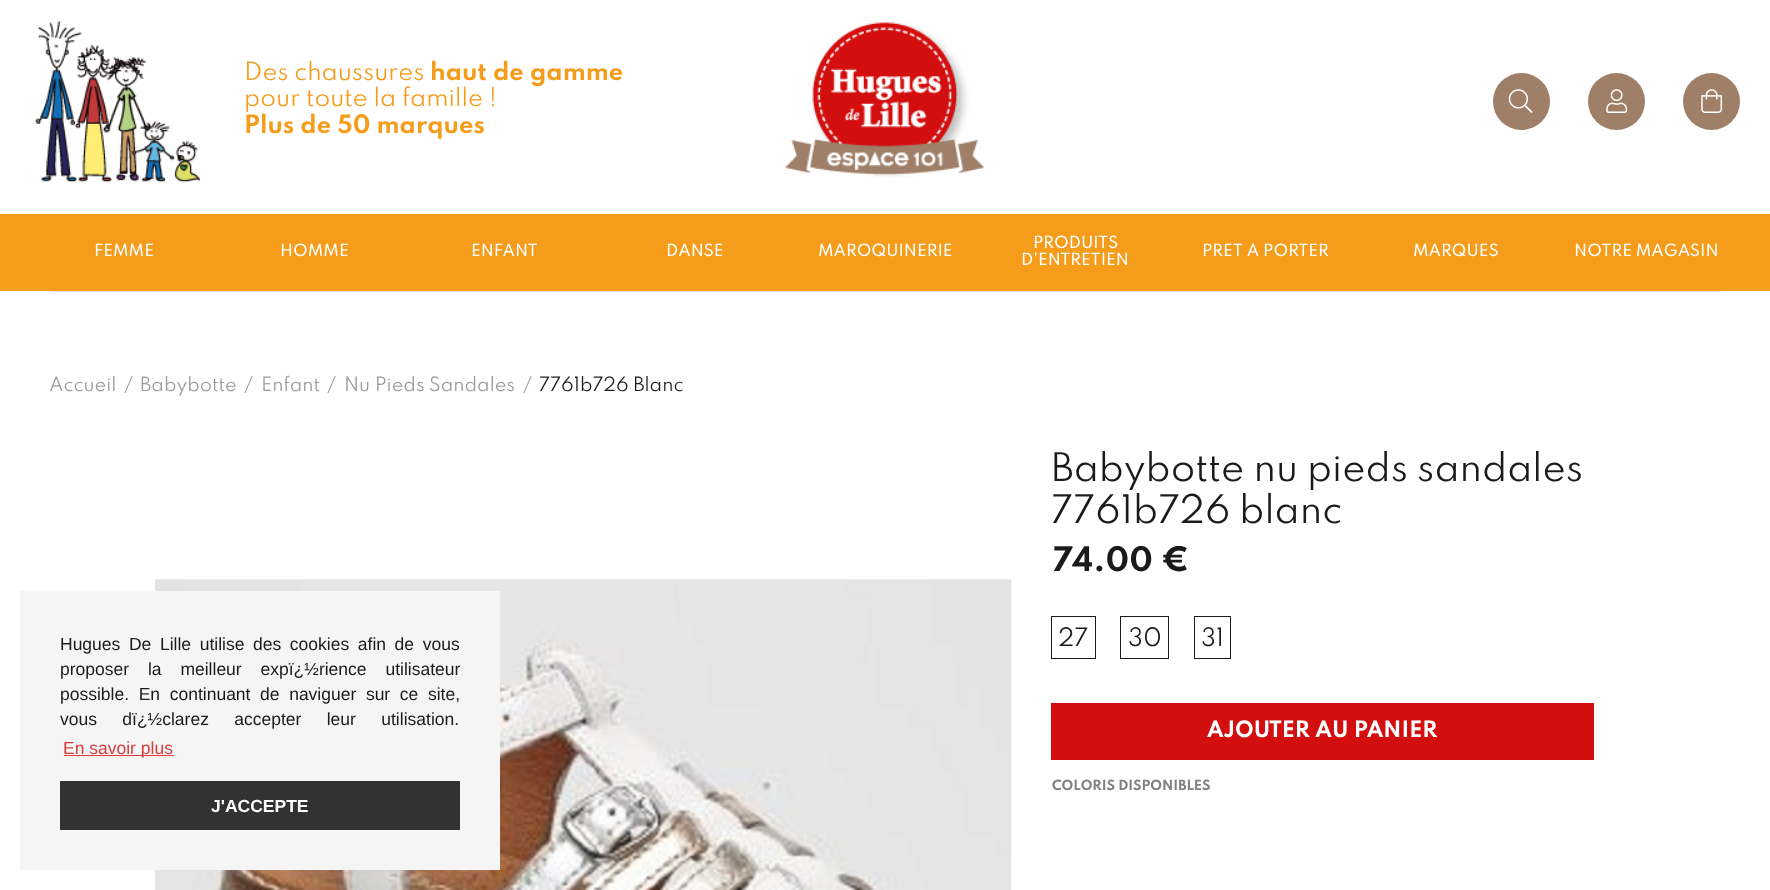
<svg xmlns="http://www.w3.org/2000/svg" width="1770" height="890">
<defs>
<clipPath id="clip1"><rect x="1054" y="546" width="157" height="32"/></clipPath>
</defs>
<rect width="100%" height="100%" fill="#fff"/>
<image x="30" y="21" width="170" height="161" href="media/1.png"/>
<text x="244" y="80" style="font-family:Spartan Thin;font-size:22.5px;fill:#f59c1a">Des chaussures</text>
<text x="430" y="80" style="font-family:Spartan Thin;font-size:22.5px;font-weight:bold;fill:#f59c1a">haut de gamme</text>
<text x="244" y="106" style="font-family:Spartan Thin;font-size:22.5px;fill:#f59c1a">pour toute la famille !</text>
<text x="244" y="133" style="font-family:Spartan Thin;font-size:22.5px;font-weight:bold;fill:#f59c1a">Plus de 50 marques</text>
<image x="785" y="22" width="199" height="156" href="media/2.png"/>
<circle cx="1521.5" cy="101.5" r="28.5" fill="#9f7f68"/>
<image x="1508" y="89" width="25" height="24" href="media/3.png"/>
<circle cx="1616.5" cy="101.5" r="28.5" fill="#9f7f68"/>
<image x="1606" y="89" width="22" height="24" href="media/4.png"/>
<circle cx="1711.5" cy="101.5" r="28.5" fill="#9f7f68"/>
<image x="1701" y="89" width="22" height="24" href="media/5.png"/>
<rect y="214" width="1770" height="77" fill="#f59c1a"/>
<text x="94" y="256" style="font-family:Spartan Thin;font-size:15px;font-weight:500;fill:#fff">FEMME</text>
<text x="280" y="256" style="font-family:Spartan Thin;font-size:15px;font-weight:500;fill:#fff">HOMME</text>
<text x="471" y="256" style="font-family:Spartan Thin;font-size:15px;font-weight:500;fill:#fff">ENFANT</text>
<text x="666" y="256" style="font-family:Spartan Thin;font-size:15px;font-weight:500;fill:#fff">DANSE</text>
<text x="818" y="256" style="font-family:Spartan Thin;font-size:15px;font-weight:500;fill:#fff">MAROQUINERIE</text>
<text x="1033" y="248" style="font-family:Spartan Thin;font-size:15px;font-weight:500;fill:#fff">PRODUITS</text>
<text x="1021" y="265" style="font-family:Spartan Thin;font-size:15px;font-weight:500;fill:#fff">D'ENTRETIEN</text>
<text x="1202" y="256" style="font-family:Spartan Thin;font-size:15px;font-weight:500;fill:#fff">PRET A PORTER</text>
<text x="1413" y="256" style="font-family:Spartan Thin;font-size:15px;font-weight:500;fill:#fff">MARQUES</text>
<text x="1574" y="256" style="font-family:Spartan Thin;font-size:15px;font-weight:500;fill:#fff">NOTRE MAGASIN</text>
<rect x="49" y="291" width="1672" height="1" fill="#e5e5e5"/>
<text x="49" y="391" style="font-family:Spartan Thin;font-size:17.5px;fill:#999">Accueil</text>
<text x="124" y="391" style="font-family:Spartan Thin;font-size:17.5px;fill:#999">/</text>
<text x="140" y="391" style="font-family:Spartan Thin;font-size:17.5px;fill:#999">Babybotte</text>
<text x="244" y="391" style="font-family:Spartan Thin;font-size:17.5px;fill:#999">/</text>
<text x="261" y="391" style="font-family:Spartan Thin;font-size:17.5px;fill:#999">Enfant</text>
<text x="327" y="391" style="font-family:Spartan Thin;font-size:17.5px;fill:#999">/</text>
<text x="344" y="391" style="font-family:Spartan Thin;font-size:17.5px;fill:#999">Nu Pieds Sandales</text>
<text x="523" y="391" style="font-family:Spartan Thin;font-size:17.5px;fill:#999">/</text>
<text x="539" y="391" style="font-family:Spartan Thin;font-size:17.5px;fill:#1a1a1a">7761b726 Blanc</text>
<image x="155" y="579" width="857" height="311" href="media/6.png"/>
<text x="1051" y="481" style="font-family:Spartan Thin;font-size:35px;fill:#1a1a1a">Babybotte nu pieds sandales</text>
<text x="1051" y="523" style="font-family:Spartan Thin;font-size:35px;fill:#1a1a1a">7761b726 blanc</text>
<g clip-path="url(#clip1)">
<text x="1053" y="571" style="font-family:Spartan Thin;font-size:30px;font-weight:bold;fill:#1a1a1a">74.00 €</text>
</g>
<rect x="1051.5" y="616.5" width="44" height="42" fill="none" stroke="#1a1a1a"/>
<text x="1058" y="646" style="font-family:Spartan Thin;font-size:22.5px;fill:#1a1a1a">27</text>
<rect x="1120.5" y="616.5" width="48" height="42" fill="none" stroke="#1a1a1a"/>
<text x="1128" y="646" style="font-family:Spartan Thin;font-size:22.5px;fill:#1a1a1a">30</text>
<rect x="1194.5" y="616.5" width="36" height="42" fill="none" stroke="#1a1a1a"/>
<text x="1201" y="646" style="font-family:Spartan Thin;font-size:22.5px;fill:#1a1a1a">31</text>
<rect x="1051" y="703" width="543" height="57" fill="#d30e0f"/>
<text x="1207" y="737" style="font-family:Spartan Thin;font-size:20px;font-weight:bold;fill:#fff">AJOUTER AU PANIER</text>
<text x="1052" y="790" style="font-family:Spartan Thin;font-size:12.5px;font-weight:bold;fill:#808080">COLORIS DISPONIBLES</text>
<rect x="20" y="591" width="480" height="279" fill="#f5f5f5"/>
<text x="60" y="650" word-spacing="3.75" style="font-family:Liberation Sans;font-size:17.5px;fill:#1a1a1a">Hugues De Lille utilise des cookies afin de vous</text>
<text x="60" y="675" word-spacing="14" style="font-family:Liberation Sans;font-size:17.5px;fill:#1a1a1a">proposer la meilleur expï¿½rience utilisateur</text>
<text x="60" y="700" word-spacing="4.75" style="font-family:Liberation Sans;font-size:17.5px;fill:#1a1a1a">possible. En continuant de naviguer sur ce site,</text>
<text x="60" y="725" word-spacing="20.5" style="font-family:Liberation Sans;font-size:17.5px;fill:#1a1a1a">vous dï¿½clarez accepter leur utilisation.</text>
<rect x="64" y="755" width="110" height="1" fill="#da3c3d"/>
<text x="63" y="754" style="font-family:Liberation Sans;font-size:17.5px;fill:#da3c3d">En savoir plus</text>
<rect x="60" y="781" width="400" height="49" fill="#323232"/>
<text x="211" y="812" style="font-family:Liberation Sans;font-size:17.5px;font-weight:bold;fill:#fff">J'ACCEPTE</text>
</svg>
